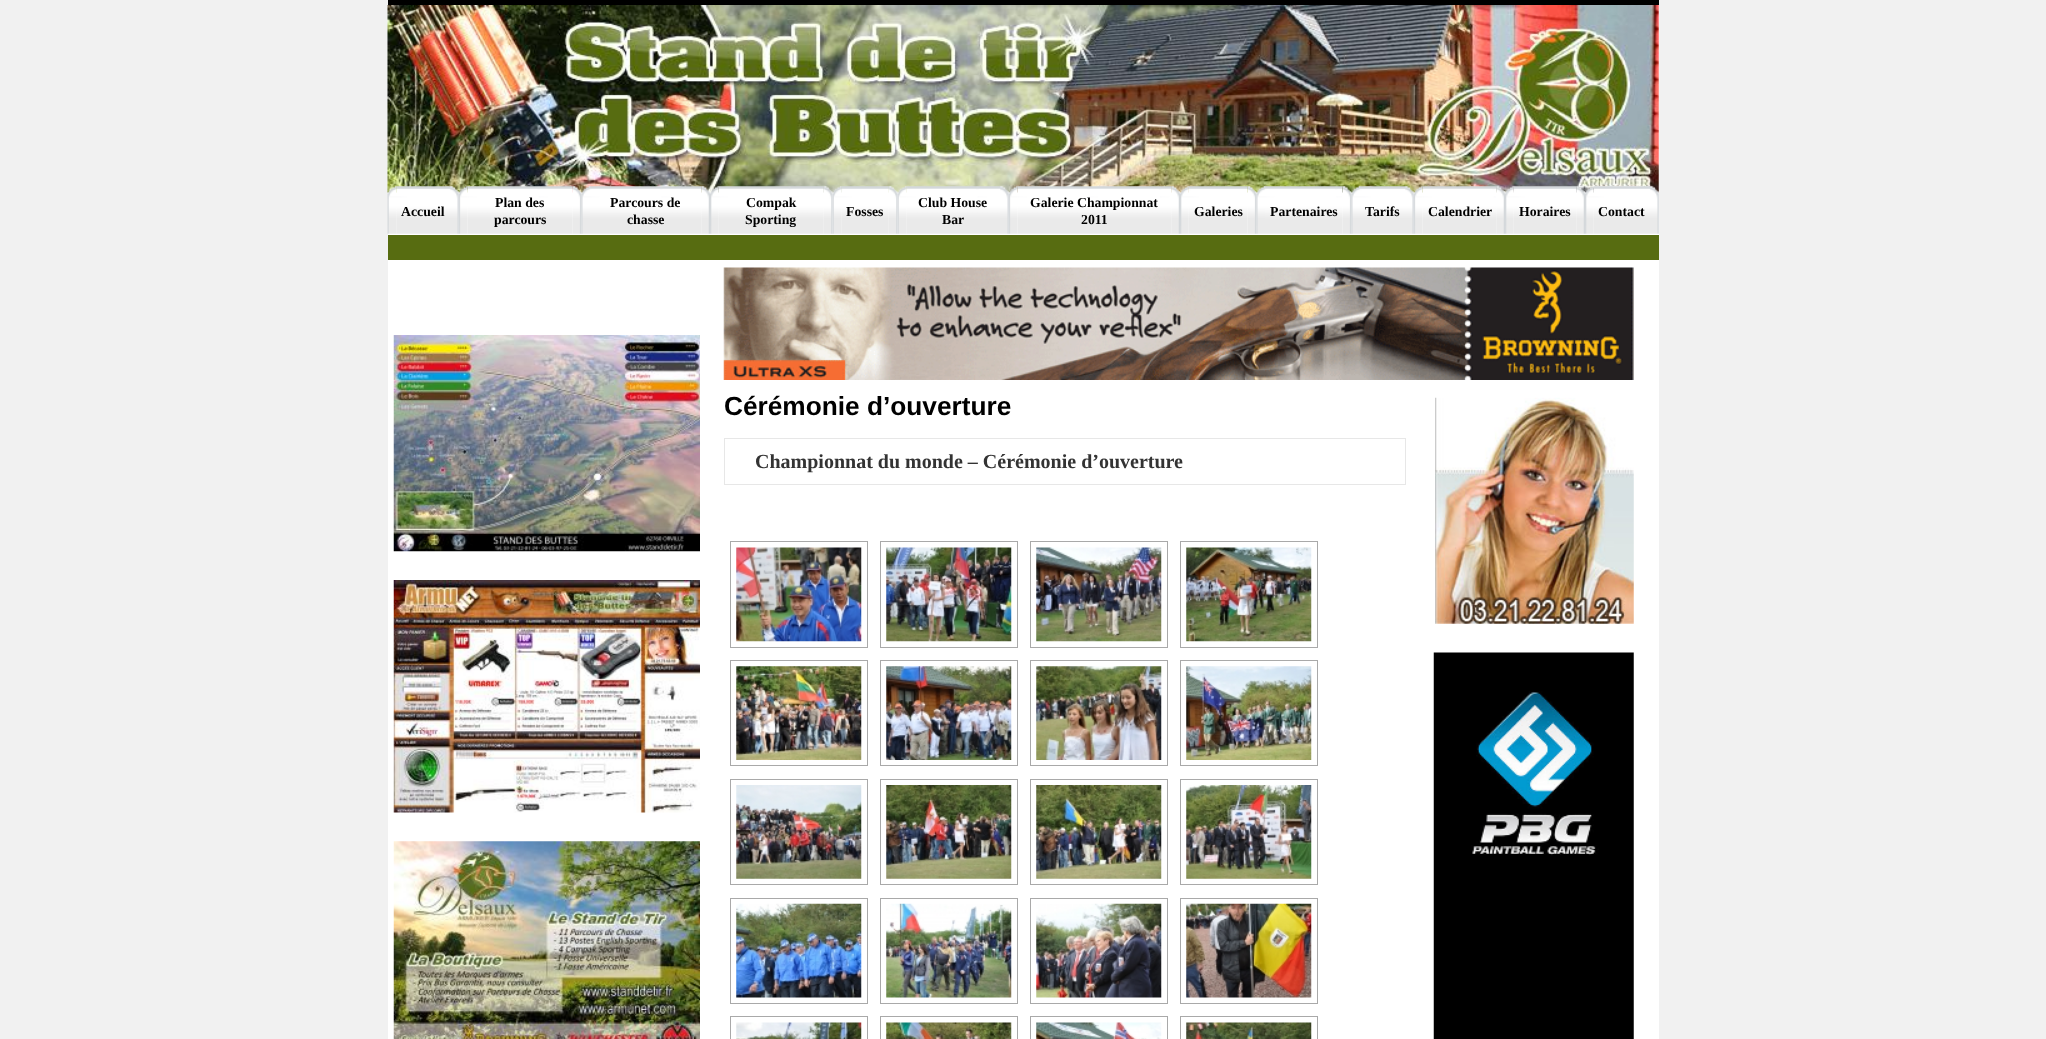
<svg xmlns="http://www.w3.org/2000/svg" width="2046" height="1039">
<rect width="100%" height="100%" fill="#f1f1f1"/>
<rect x="388" y="5" width="1271" height="1034" fill="#fff"/>
<rect x="388" width="1271" height="5" fill="#000"/>
<image x="387" y="5" width="1272" height="188" href="media/1.png"/>
<image x="396" y="186" width="54" height="48" href="media/3.png"/>
<image x="387" y="186" width="10" height="48" href="media/2.png"/>
<text x="401" y="216" style="font-family:Liberation Serif;font-size:13.75px;font-weight:bold;fill:#000">Accueil</text>
<image x="450" y="186" width="9" height="48" href="media/4.png"/>
<image x="467" y="186" width="106" height="48" href="media/6.png"/>
<image x="458" y="186" width="10" height="48" href="media/5.png"/>
<text x="495" y="207" style="font-family:Liberation Serif;font-size:13.75px;font-weight:bold;fill:#000">Plan des</text>
<text x="494" y="224" style="font-family:Liberation Serif;font-size:13.75px;font-weight:bold;fill:#000">parcours</text>
<image x="572" y="186" width="10" height="48" href="media/7.png"/>
<image x="581" y="186" width="9" height="48" href="media/8.png"/>
<image x="590" y="186" width="112" height="48" href="media/9.png"/>
<text x="610" y="207" style="font-family:Liberation Serif;font-size:13.75px;font-weight:bold;fill:#000">Parcours de</text>
<text x="627" y="224" style="font-family:Liberation Serif;font-size:13.75px;font-weight:bold;fill:#000">chasse</text>
<image x="701" y="186" width="9" height="48" href="media/10.png"/>
<image x="718" y="186" width="106" height="48" href="media/12.png"/>
<image x="710" y="186" width="9" height="48" href="media/11.png"/>
<text x="746" y="207" style="font-family:Liberation Serif;font-size:13.75px;font-weight:bold;fill:#000">Compak</text>
<text x="745" y="224" style="font-family:Liberation Serif;font-size:13.75px;font-weight:bold;fill:#000">Sporting</text>
<image x="823" y="186" width="10" height="48" href="media/13.png"/>
<image x="841" y="186" width="48" height="48" href="media/15.png"/>
<image x="832" y="186" width="10" height="48" href="media/14.png"/>
<text x="846" y="216" style="font-family:Liberation Serif;font-size:13.75px;font-weight:bold;fill:#000">Fosses</text>
<image x="888" y="186" width="10" height="48" href="media/16.png"/>
<image x="906" y="186" width="94" height="48" href="media/18.png"/>
<image x="897" y="186" width="10" height="48" href="media/17.png"/>
<text x="918" y="207" style="font-family:Liberation Serif;font-size:13.75px;font-weight:bold;fill:#000">Club House</text>
<text x="942" y="224" style="font-family:Liberation Serif;font-size:13.75px;font-weight:bold;fill:#000">Bar</text>
<image x="1000" y="186" width="9" height="48" href="media/19.png"/>
<image x="1017" y="186" width="155" height="48" href="media/21.png"/>
<image x="1008" y="186" width="10" height="48" href="media/20.png"/>
<text x="1030" y="207" style="font-family:Liberation Serif;font-size:13.75px;font-weight:bold;fill:#000">Galerie Championnat</text>
<text x="1081" y="224" style="font-family:Liberation Serif;font-size:13.75px;font-weight:bold;fill:#000">2011</text>
<image x="1171" y="186" width="9" height="48" href="media/22.png"/>
<image x="1188" y="186" width="60" height="48" href="media/24.png"/>
<image x="1180" y="186" width="9" height="48" href="media/23.png"/>
<text x="1194" y="216" style="font-family:Liberation Serif;font-size:13.75px;font-weight:bold;fill:#000">Galeries</text>
<image x="1247" y="186" width="10" height="48" href="media/25.png"/>
<image x="1256" y="186" width="9" height="48" href="media/26.png"/>
<image x="1265" y="186" width="78" height="48" href="media/27.png"/>
<text x="1270" y="216" style="font-family:Liberation Serif;font-size:13.75px;font-weight:bold;fill:#000">Partenaires</text>
<image x="1342" y="186" width="10" height="48" href="media/28.png"/>
<image x="1351" y="186" width="9" height="48" href="media/29.png"/>
<image x="1360" y="186" width="45" height="48" href="media/30.png"/>
<text x="1365" y="216" style="font-family:Liberation Serif;font-size:13.75px;font-weight:bold;fill:#000">Tarifs</text>
<image x="1405" y="186" width="9" height="48" href="media/31.png"/>
<image x="1422" y="186" width="75" height="48" href="media/33.png"/>
<image x="1413" y="186" width="10" height="48" href="media/32.png"/>
<text x="1428" y="216" style="font-family:Liberation Serif;font-size:13.75px;font-weight:bold;fill:#000">Calendrier</text>
<image x="1496" y="186" width="9" height="48" href="media/34.png"/>
<image x="1513" y="186" width="64" height="48" href="media/36.png"/>
<image x="1505" y="186" width="9" height="48" href="media/35.png"/>
<text x="1519" y="216" style="font-family:Liberation Serif;font-size:13.75px;font-weight:bold;fill:#000">Horaires</text>
<image x="1576" y="186" width="9" height="48" href="media/37.png"/>
<image x="1593" y="186" width="57" height="48" href="media/39.png"/>
<image x="1585" y="186" width="9" height="48" href="media/38.png"/>
<text x="1598" y="216" style="font-family:Liberation Serif;font-size:13.75px;font-weight:bold;fill:#000">Contact</text>
<image x="1650" y="186" width="9" height="48" href="media/40.png"/>
<rect x="388" y="235" width="1271" height="25" fill="#576c11"/>
<image x="393" y="335" width="307" height="217" href="media/41.png"/>
<image x="393" y="580" width="307" height="233" href="media/42.png"/>
<image x="393" y="841" width="307" height="198" href="media/43.png"/>
<image x="723" y="267" width="911" height="113" href="media/44.png"/>
<text x="724" y="415" style="font-family:Liberation Sans;font-size:26.25px;font-weight:bold;fill:#000">Cérémonie d’ouverture</text>
<rect x="724" y="438" width="682" height="1" fill="#e7e7e7"/>
<rect x="1405" y="438" width="1" height="47" fill="#e7e7e7"/>
<rect x="724" y="484" width="682" height="1" fill="#e7e7e7"/>
<rect x="724" y="438" width="1" height="47" fill="#e7e7e7"/>
<text x="755" y="468" style="font-family:Liberation Serif;font-size:20px;font-weight:bold;fill:#333">Championnat du monde – Cérémonie d’ouverture</text>
<rect x="730.5" y="541.5" width="137" height="106" fill="none" stroke="#a9a9a9"/>
<image x="736" y="547" width="126" height="95" href="media/45.png"/>
<rect x="880.5" y="541.5" width="137" height="106" fill="none" stroke="#a9a9a9"/>
<image x="886" y="547" width="126" height="95" href="media/46.png"/>
<rect x="1030.5" y="541.5" width="137" height="106" fill="none" stroke="#a9a9a9"/>
<image x="1036" y="547" width="126" height="95" href="media/47.png"/>
<rect x="1180.5" y="541.5" width="137" height="106" fill="none" stroke="#a9a9a9"/>
<image x="1186" y="547" width="126" height="95" href="media/48.png"/>
<rect x="730.5" y="660.5" width="137" height="105" fill="none" stroke="#a9a9a9"/>
<image x="736" y="666" width="126" height="94" href="media/49.png"/>
<rect x="880.5" y="660.5" width="137" height="105" fill="none" stroke="#a9a9a9"/>
<image x="886" y="666" width="126" height="94" href="media/50.png"/>
<rect x="1030.5" y="660.5" width="137" height="105" fill="none" stroke="#a9a9a9"/>
<image x="1036" y="666" width="126" height="94" href="media/51.png"/>
<rect x="1180.5" y="660.5" width="137" height="105" fill="none" stroke="#a9a9a9"/>
<image x="1186" y="666" width="126" height="94" href="media/52.png"/>
<rect x="730.5" y="779.5" width="137" height="105" fill="none" stroke="#a9a9a9"/>
<image x="736" y="785" width="126" height="94" href="media/53.png"/>
<rect x="880.5" y="779.5" width="137" height="105" fill="none" stroke="#a9a9a9"/>
<image x="886" y="785" width="126" height="94" href="media/54.png"/>
<rect x="1030.5" y="779.5" width="137" height="105" fill="none" stroke="#a9a9a9"/>
<image x="1036" y="785" width="126" height="94" href="media/55.png"/>
<rect x="1180.5" y="779.5" width="137" height="105" fill="none" stroke="#a9a9a9"/>
<image x="1186" y="785" width="126" height="94" href="media/56.png"/>
<rect x="730.5" y="898.5" width="137" height="105" fill="none" stroke="#a9a9a9"/>
<image x="736" y="903" width="126" height="95" href="media/57.png"/>
<rect x="880.5" y="898.5" width="137" height="105" fill="none" stroke="#a9a9a9"/>
<image x="886" y="903" width="126" height="95" href="media/58.png"/>
<rect x="1030.5" y="898.5" width="137" height="105" fill="none" stroke="#a9a9a9"/>
<image x="1036" y="903" width="126" height="95" href="media/59.png"/>
<rect x="1180.5" y="898.5" width="137" height="105" fill="none" stroke="#a9a9a9"/>
<image x="1186" y="903" width="126" height="95" href="media/60.png"/>
<rect x="730.5" y="1016.5" width="137" height="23" fill="none" stroke="#a9a9a9"/>
<image x="736" y="1022" width="126" height="17" href="media/61.png"/>
<rect x="880.5" y="1016.5" width="137" height="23" fill="none" stroke="#a9a9a9"/>
<image x="886" y="1022" width="126" height="17" href="media/62.png"/>
<rect x="1030.5" y="1016.5" width="137" height="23" fill="none" stroke="#a9a9a9"/>
<image x="1036" y="1022" width="126" height="17" href="media/63.png"/>
<rect x="1180.5" y="1016.5" width="137" height="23" fill="none" stroke="#a9a9a9"/>
<image x="1186" y="1022" width="126" height="17" href="media/64.png"/>
<image x="1435" y="397" width="199" height="227" href="media/65.png"/>
<image x="1433" y="652" width="201" height="387" href="media/66.png"/>
</svg>
